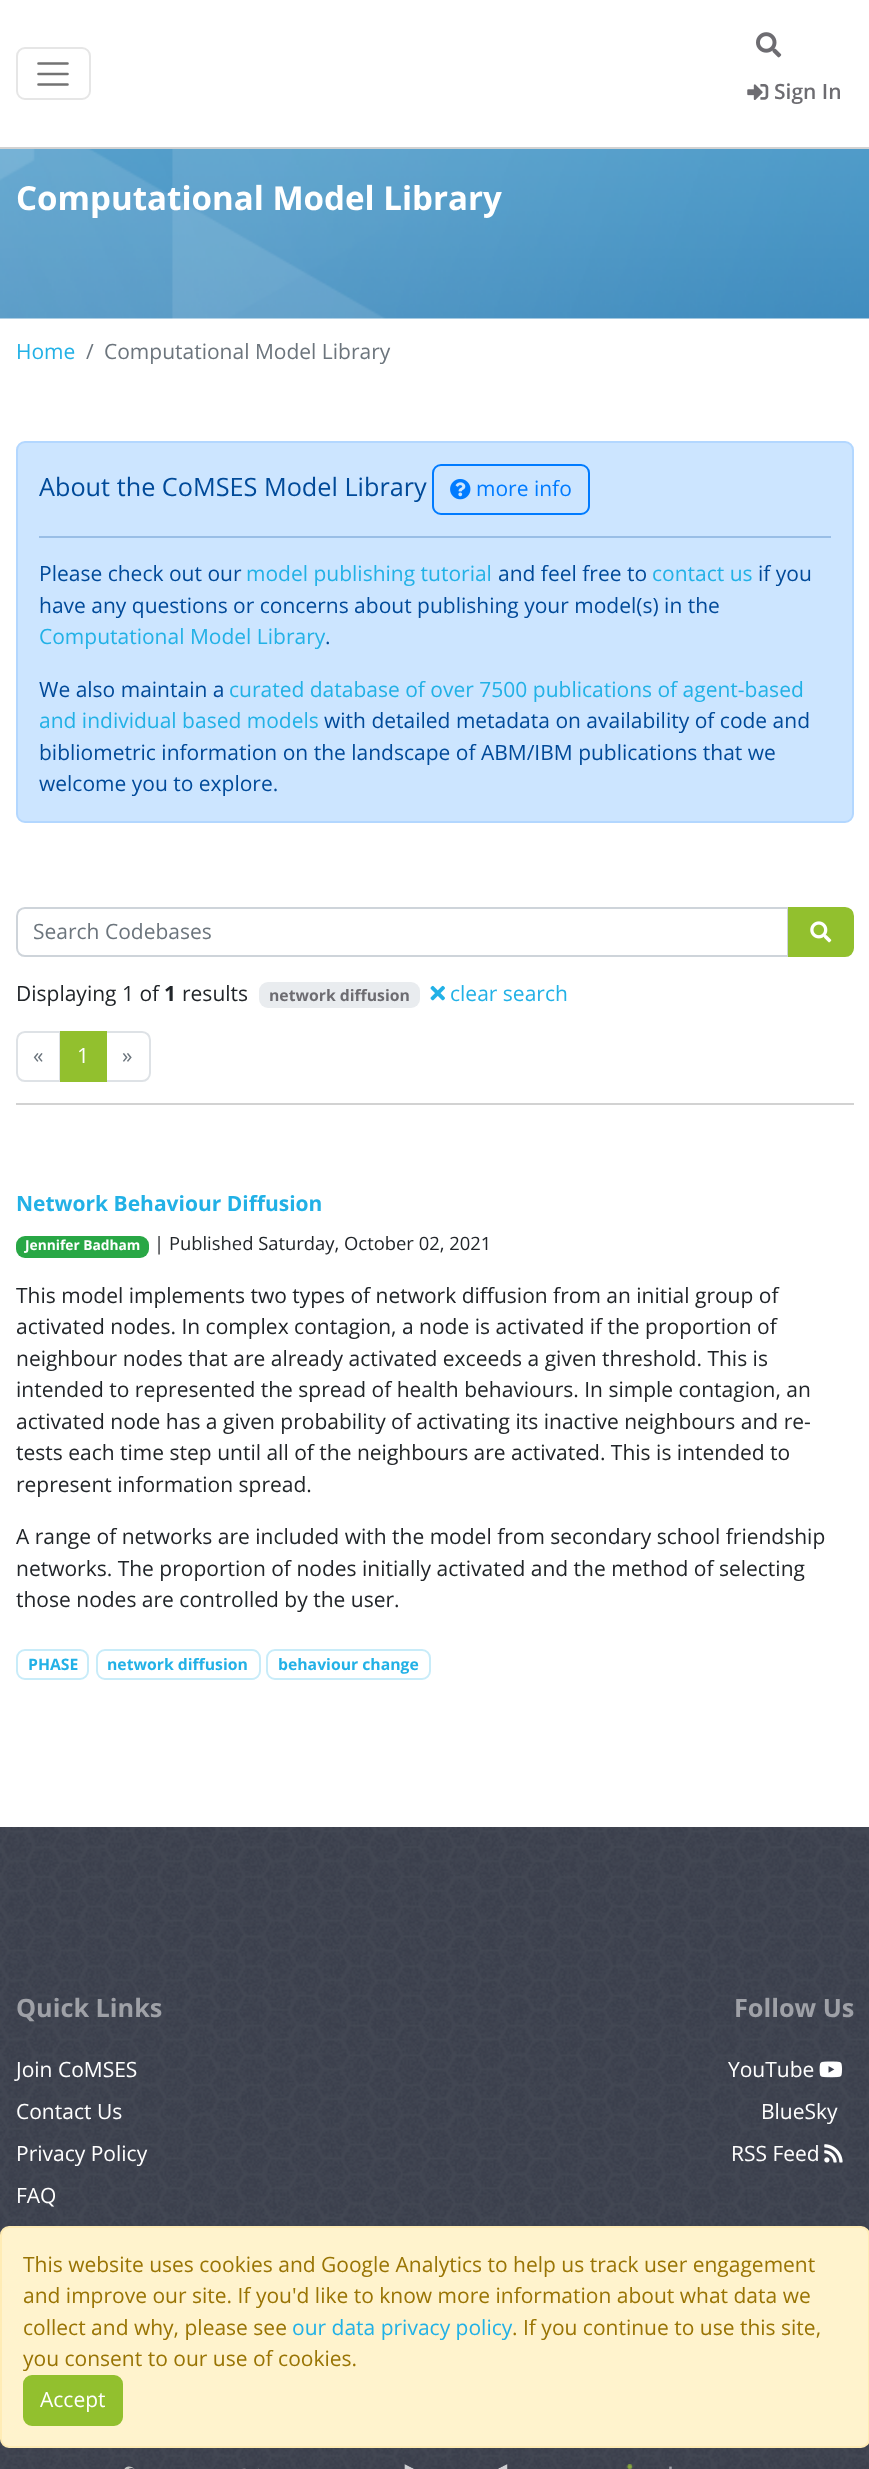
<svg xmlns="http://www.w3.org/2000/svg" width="869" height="2469">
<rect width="100%" height="100%" fill="#fff"/>
<rect y="147" width="869" height="2" fill="#d2d2d2"/>
<rect x="17" y="48" width="73" height="51" rx="8" fill="none" stroke="#e6e6e6" stroke-width="2"/>
<path d="M38.5 63.5h29m-29 10.5h29m-29 10.5h29" fill="none" stroke="#737373" stroke-width="2.6" stroke-linecap="round"/>
<image x="756" y="32" width="26" height="26" href="media/1.png"/>
<image x="747" y="84" width="22" height="16" href="media/2.png"/>
<text x="774" y="99" style="font-family:Open Sans;font-size:21px;font-weight:600;fill:#6d6c71">Sign In</text>
<image x="0" y="149" width="869" height="170" href="media/3.png"/>
<text x="16" y="210" style="font-family:Open Sans;font-size:33.1px;font-weight:bold;fill:#fff">Computational Model Library</text>
<text x="16" y="359" style="font-family:Open Sans;font-size:21px;fill:#22b1e6">Home</text>
<text x="86" y="359" style="font-family:Open Sans;font-size:21px;fill:#6c757d">/</text>
<text x="104" y="359" style="font-family:Open Sans;font-size:21px;fill:#6c757d">Computational Model Library</text>
<rect x="17" y="442" width="836" height="380" rx="8" fill="#cce5ff" stroke="#b3d7ff" stroke-width="2"/>
<text x="39" y="496" style="font-family:Open Sans;font-size:25.25px;fill:#004a99">About the CoMSES Model Library</text>
<rect x="433" y="465" width="156" height="49" rx="8" fill="none" stroke="#007bff" stroke-width="2"/>
<image x="450" y="479" width="21" height="21" href="media/4.png"/>
<text x="476" y="496" style="font-family:Open Sans;font-size:21px;fill:#007bff">more info</text>
<rect x="39" y="536" width="792" height="2" fill="#99bee6"/>
<text x="39" y="581" style="font-family:Open Sans;font-size:21px;fill:#004a99">Please check out our</text>
<text x="246" y="581" style="font-family:Open Sans;font-size:21px;fill:#22b1e6">model publishing tutorial</text>
<text x="498" y="581" style="font-family:Open Sans;font-size:21px;fill:#004a99">and feel free to</text>
<text x="652" y="581" style="font-family:Open Sans;font-size:21px;fill:#22b1e6">contact us</text>
<text x="758" y="581" style="font-family:Open Sans;font-size:21px;fill:#004a99">if you</text>
<text x="39" y="613" style="font-family:Open Sans;font-size:21px;fill:#004a99">have any questions or concerns about publishing your model(s) in the</text>
<text x="39" y="644" style="font-family:Open Sans;font-size:21px;fill:#22b1e6">Computational Model Library</text>
<text x="325" y="644" style="font-family:Open Sans;font-size:21px;fill:#004a99">.</text>
<text x="39" y="697" style="font-family:Open Sans;font-size:21px;fill:#004a99">We also maintain a</text>
<text x="229" y="697" style="font-family:Open Sans;font-size:21px;fill:#22b1e6">curated database of over 7500 publications of agent-based</text>
<text x="39" y="728" style="font-family:Open Sans;font-size:21px;fill:#22b1e6">and individual based models</text>
<text x="324" y="728" style="font-family:Open Sans;font-size:21px;fill:#004a99">with detailed metadata on availability of code and</text>
<text x="39" y="760" style="font-family:Open Sans;font-size:21px;fill:#004a99">bibliometric information on the landscape of ABM/IBM publications that we</text>
<text x="39" y="791" style="font-family:Open Sans;font-size:21px;fill:#004a99">welcome you to explore.</text>
<path d="M25 908h763v48h-763c-4.5 0-8-3.5-8-8v-32c0-4.5 3.5-8 8-8z" fill="none" stroke="#ced4da" stroke-width="2"/>
<text x="33" y="939" style="font-family:Open Sans;font-size:21px;fill:#6c757d">Search Codebases</text>
<path d="M789 908h56c4.5 0 8 3.5 8 8v32c0 4.5-3.5 8-8 8h-56z" fill="#92c02e" stroke="#92c02e" stroke-width="2"/>
<image x="810" y="921" width="22" height="22" href="media/5.png"/>
<text x="16" y="1001" style="font-family:Open Sans;font-size:21px;fill:#212529">Displaying 1 of</text>
<text x="164" y="1001" style="font-family:Open Sans;font-size:21px;font-weight:bold;fill:#212529">1</text>
<text x="182" y="1001" style="font-family:Open Sans;font-size:21px;fill:#212529">results</text>
<rect x="259" y="982" width="161" height="26" rx="9" fill="#e9ecef"/>
<text x="269" y="1001" style="font-family:Open Sans;font-size:15.75px;font-weight:bold;fill:#6d6c71">network diffusion</text>
<image x="430" y="985" width="15" height="16" href="media/6.png"/>
<text x="450" y="1001" style="font-family:Open Sans;font-size:21px;fill:#22b1e6">clear search</text>
<path d="M25 1032h35v49h-35c-4.5 0-8-3.5-8-8v-33c0-4.5 3.5-8 8-8z" fill="none" stroke="#dee2e6" stroke-width="2"/>
<text x="33" y="1063" style="font-family:Open Sans;font-size:21px;fill:#6c757d">«</text>
<path d="M106 1032h36c4.5 0 8 3.5 8 8v33c0 4.5-3.5 8-8 8h-36z" fill="none" stroke="#dee2e6" stroke-width="2"/>
<rect x="60" y="1031" width="47" height="51" fill="#92c02e"/>
<text x="77" y="1063" style="font-family:Open Sans;font-size:21px;fill:#fff">1</text>
<text x="122" y="1063" style="font-family:Open Sans;font-size:21px;fill:#6c757d">»</text>
<rect x="16" y="1103" width="838" height="2" fill="#d2d2d2"/>
<text x="16" y="1211" style="font-family:Open Sans;font-size:21px;font-weight:bold;fill:#22b1e6">Network Behaviour Diffusion</text>
<rect x="16" y="1236" width="133" height="22" rx="9" fill="#28a745"/>
<text x="25" y="1250" style="font-family:Open Sans;font-size:13.75px;font-weight:bold;fill:#fff">Jennifer Badham</text>
<text x="154" y="1250" style="font-family:Open Sans;font-size:18.4px;fill:#212529">| Published Saturday, October 02, 2021</text>
<text x="16" y="1303" style="font-family:Open Sans;font-size:21px;fill:#212529">This model implements two types of network diffusion from an initial group of</text>
<text x="16" y="1334" style="font-family:Open Sans;font-size:21px;fill:#212529">activated nodes. In complex contagion, a node is activated if the proportion of</text>
<text x="16" y="1366" style="font-family:Open Sans;font-size:21px;fill:#212529">neighbour nodes that are already activated exceeds a given threshold. This is</text>
<text x="16" y="1397" style="font-family:Open Sans;font-size:21px;fill:#212529">intended to represented the spread of health behaviours. In simple contagion, an</text>
<text x="16" y="1429" style="font-family:Open Sans;font-size:21px;fill:#212529">activated node has a given probability of activating its inactive neighbours and re-</text>
<text x="16" y="1460" style="font-family:Open Sans;font-size:21px;fill:#212529">tests each time step until all of the neighbours are activated. This is intended to</text>
<text x="16" y="1492" style="font-family:Open Sans;font-size:21px;fill:#212529">represent information spread.</text>
<text x="16" y="1544" style="font-family:Open Sans;font-size:21px;fill:#212529">A range of networks are included with the model from secondary school friendship</text>
<text x="16" y="1576" style="font-family:Open Sans;font-size:21px;fill:#212529">networks. The proportion of nodes initially activated and the method of selecting</text>
<text x="16" y="1607" style="font-family:Open Sans;font-size:21px;fill:#212529">those nodes are controlled by the user.</text>
<rect x="17" y="1650" width="71" height="29" rx="8" fill="none" stroke="#c8ecf9" stroke-width="2"/>
<text x="28" y="1670" style="font-family:Open Sans;font-size:15.75px;font-weight:bold;fill:#22b1e6">PHASE</text>
<rect x="97" y="1650" width="163" height="29" rx="8" fill="none" stroke="#c8ecf9" stroke-width="2"/>
<text x="107" y="1670" style="font-family:Open Sans;font-size:15.75px;font-weight:bold;fill:#22b1e6">network diffusion</text>
<rect x="267" y="1650" width="163" height="29" rx="8" fill="none" stroke="#c8ecf9" stroke-width="2"/>
<text x="278" y="1670" style="font-family:Open Sans;font-size:15.75px;font-weight:bold;fill:#22b1e6">behaviour change</text>
<image x="0" y="1827" width="869" height="642" href="media/7.png"/>
<text x="16" y="2017" style="font-family:Open Sans;font-size:25.25px;font-weight:bold;fill:#9fa1a7">Quick Links</text>
<text x="16" y="2077" style="font-family:Open Sans;font-size:21px;fill:#fff">Join CoMSES</text>
<text x="16" y="2119" style="font-family:Open Sans;font-size:21px;fill:#fff">Contact Us</text>
<text x="16" y="2161" style="font-family:Open Sans;font-size:21px;fill:#fff">Privacy Policy</text>
<text x="16" y="2203" style="font-family:Open Sans;font-size:21px;fill:#fff">FAQ</text>
<text x="734" y="2017" style="font-family:Open Sans;font-size:25.25px;font-weight:bold;fill:#9fa1a7">Follow Us</text>
<text x="728" y="2077" style="font-family:Open Sans;font-size:21px;fill:#fff">YouTube</text>
<image x="819" y="2061" width="23" height="17" href="media/8.png"/>
<text x="761" y="2119" style="font-family:Open Sans;font-size:21px;fill:#fff">BlueSky</text>
<text x="731" y="2161" style="font-family:Open Sans;font-size:21px;fill:#fff">RSS Feed</text>
<image x="824" y="2144" width="19" height="19" href="media/9.png"/>
<image x="124" y="2466" width="135" height="3" href="media/10.png"/>
<image x="404" y="2464" width="104" height="5" href="media/11.png"/>
<image x="626" y="2464" width="46" height="5" href="media/12.png"/>
<rect x="1" y="2227" width="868" height="220" rx="8" fill="#fff3cd" stroke="#ffecb5" stroke-width="2"/>
<text x="23" y="2272" style="font-family:Open Sans;font-size:21px;fill:#997404">This website uses cookies and Google Analytics to help us track user engagement</text>
<text x="23" y="2303" style="font-family:Open Sans;font-size:21px;fill:#997404">and improve our site. If you'd like to know more information about what data we</text>
<text x="23" y="2335" style="font-family:Open Sans;font-size:21px;fill:#997404">collect and why, please see</text>
<text x="292" y="2335" style="font-family:Open Sans;font-size:21px;fill:#22b1e6">our data privacy policy</text>
<text x="512" y="2335" style="font-family:Open Sans;font-size:21px;fill:#997404">. If you continue to use this site,</text>
<text x="23" y="2366" style="font-family:Open Sans;font-size:21px;fill:#997404">you consent to our use of cookies.</text>
<rect x="24" y="2376" width="98" height="49" rx="8" fill="#92c02e" stroke="#92c02e" stroke-width="2"/>
<text x="40" y="2407" style="font-family:Open Sans;font-size:21px;fill:#fff">Accept</text>
</svg>
